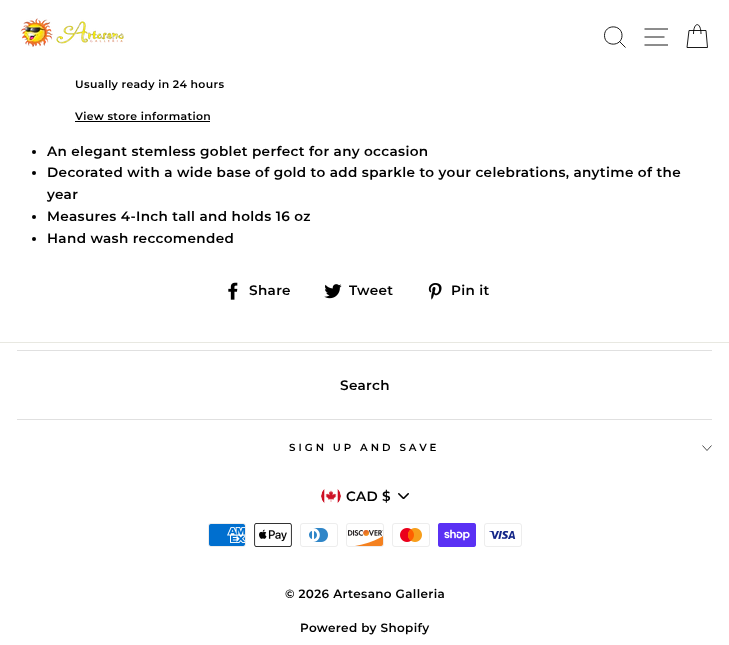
<svg xmlns="http://www.w3.org/2000/svg" width="729" height="645">
<rect width="100%" height="100%" fill="#fff"/>
<rect width="729" height="73" fill="#00000033" filter="blur(0.5px)"/>
<rect width="729" height="73" fill="#fff"/>
<image x="20" y="18" width="104" height="29" href="media/1.png"/>
<path d="M622 35.5c0 11.5-17.5 11.5-17.5 0c0-11.5 17.5-11.5 17.5 0zm3.5 12l-6-6" fill="none" stroke="#000" stroke-width="0.9"/>
<path d="M644.5 29h23.5m-23.5 8h20m-20 8h23.5m25.5-11c0-12.5 7.5-12.5 7.5 0" fill="none" stroke="#000" stroke-width="0.9"/>
<path d="M689 30.5h17l1.5 17h-20.5z" fill="none" stroke="#000" stroke-width="0.9"/>
<text x="75" y="88" style="font-family:Montserrat;font-size:10.9px;font-weight:600;letter-spacing:0.35px;fill:#000">Usually ready in 24 hours</text>
<text x="75" y="120" style="font-family:Montserrat;font-size:10.9px;font-weight:600;letter-spacing:0.35px;fill:#000">View store information</text>
<rect x="75" y="121" width="135" height="1" fill="#000"/>
<circle cx="34" cy="152" r="2" fill="#000"/>
<text x="47" y="156" style="font-family:Montserrat;font-size:13.6px;font-weight:600;letter-spacing:0.35px;fill:#000">An elegant stemless goblet perfect for any occasion</text>
<circle cx="34" cy="173" r="2" fill="#000"/>
<text x="47" y="177" style="font-family:Montserrat;font-size:13.6px;font-weight:600;letter-spacing:0.35px;fill:#000">Decorated with a wide base of gold to add sparkle to your celebrations, anytime of the</text>
<text x="47" y="199" style="font-family:Montserrat;font-size:13.6px;font-weight:600;letter-spacing:0.35px;fill:#000">year</text>
<circle cx="34" cy="217" r="2" fill="#000"/>
<text x="47" y="221" style="font-family:Montserrat;font-size:13.6px;font-weight:600;letter-spacing:0.35px;fill:#000">Measures 4-Inch tall and holds 16 oz</text>
<circle cx="34" cy="239" r="2" fill="#000"/>
<text x="47" y="243" style="font-family:Montserrat;font-size:13.6px;font-weight:600;letter-spacing:0.35px;fill:#000">Hand wash reccomended</text>
<image x="228" y="282" width="10" height="18" href="media/2.png"/>
<text x="249" y="295" style="font-family:Montserrat;font-size:13.6px;font-weight:600;letter-spacing:0.35px;fill:#000">Share</text>
<image x="324" y="284" width="18" height="15" href="media/3.png"/>
<text x="349" y="295" style="font-family:Montserrat;font-size:13.6px;font-weight:600;letter-spacing:0.35px;fill:#000">Tweet</text>
<image x="428" y="283" width="14" height="17" href="media/4.png"/>
<text x="451" y="295" style="font-family:Montserrat;font-size:13.6px;font-weight:600;letter-spacing:0.35px;fill:#000">Pin it</text>
<rect y="342" width="729" height="1" fill="#e8e8e1"/>
<rect x="17" y="350" width="695" height="1" fill="#e0e0e0"/>
<text x="340" y="390" style="font-family:Montserrat;font-size:13.6px;font-weight:600;letter-spacing:0.35px;fill:#000">Search</text>
<rect x="17" y="419" width="695" height="1" fill="#e0e0e0"/>
<text x="289" y="451" style="font-family:Montserrat;font-size:10.25px;font-weight:600;letter-spacing:3px;fill:#000">SIGN UP AND SAVE</text>
<path d="M702.5 445.5l4.5 5l4.5-5" fill="none" stroke="#000" stroke-width="0.7"/>
<image x="398" y="493" width="11" height="6" href="media/5.png"/>
<image x="321" y="489" width="20" height="15" href="media/6.png"/>
<text x="346" y="501" style="font-family:Montserrat;font-size:13.6px;font-weight:600;letter-spacing:0.35px;fill:#000">CAD $</text>
<image x="208" y="523" width="38" height="24" href="media/7.png"/>
<image x="254" y="523" width="38" height="24" href="media/8.png"/>
<image x="300" y="523" width="38" height="24" href="media/9.png"/>
<image x="346" y="523" width="38" height="24" href="media/10.png"/>
<image x="392" y="523" width="38" height="24" href="media/11.png"/>
<image x="438" y="523" width="38" height="24" href="media/12.png"/>
<image x="484" y="523" width="38" height="24" href="media/13.png"/>
<text x="285" y="598" style="font-family:Montserrat;font-size:12px;font-weight:600;letter-spacing:0.35px;fill:#000">© 2026 Artesano Galleria</text>
<text x="300" y="632" style="font-family:Montserrat;font-size:12px;font-weight:600;letter-spacing:0.35px;fill:#000">Powered by Shopify</text>
</svg>
